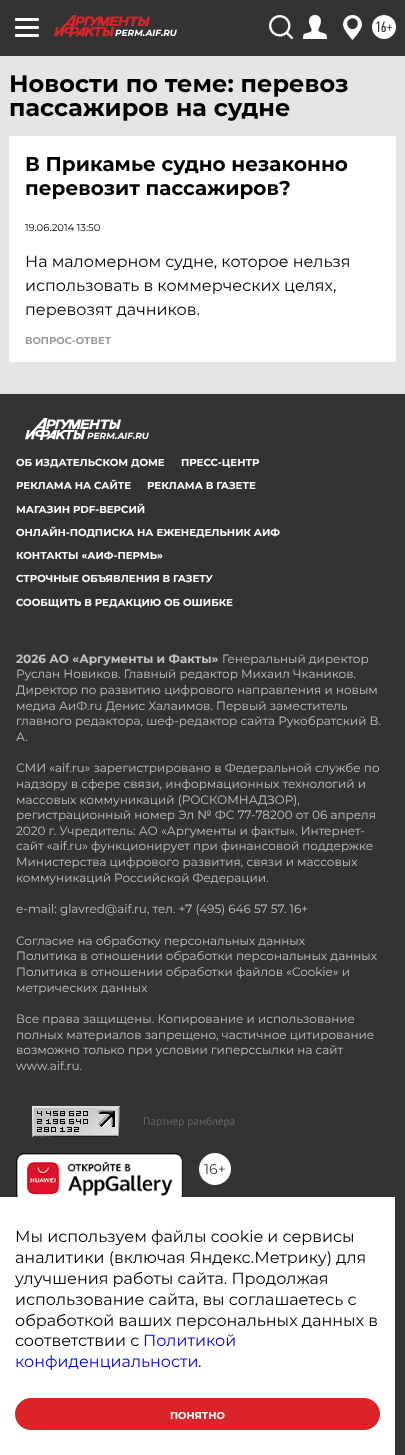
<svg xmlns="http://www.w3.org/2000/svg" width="405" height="1455">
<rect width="100%" height="100%" fill="#333"/>
<rect y="56" width="405" height="338" fill="#e5e5e5"/>
<rect x="15" y="18" width="24" height="3" rx="1" fill="#fff"/>
<rect x="15" y="26" width="24" height="3" rx="1" fill="#fff"/>
<rect x="15" y="34" width="24" height="3" rx="1" fill="#fff"/>
<image x="54" y="15" width="96" height="22" href="media/1.png"/>
<text x="115" y="36" style="font-family:Montserrat;font-size:9px;font-weight:bold;font-style:italic;fill:#fff">PERM.AIF.RU</text>
<image x="269" y="15" width="24" height="24" href="media/2.png"/>
<image x="303" y="15" width="24" height="24" href="media/3.png"/>
<image x="343" y="15" width="19" height="25" href="media/4.png"/>
<circle cx="384" cy="27" r="12" fill="#fff"/>
<text x="375" y="32" style="font-family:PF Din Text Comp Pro;font-size:15px;fill:#333">16+</text>
<text x="9" y="92" style="font-family:Montserrat;font-size:24px;font-weight:bold;fill:#000">Новости по теме: перевоз</text>
<text x="9" y="116" style="font-family:Montserrat;font-size:24px;font-weight:bold;fill:#000">пассажиров на судне</text>
<rect x="9" y="136" width="387" height="226" fill="#fff"/>
<text x="25" y="171" style="font-family:Montserrat;font-size:20px;font-weight:bold;fill:#000">В Прикамье судно незаконно</text>
<text x="25" y="195" style="font-family:Montserrat;font-size:20px;font-weight:bold;fill:#000">перевозит пассажиров?</text>
<text x="25" y="231" style="font-family:Montserrat;font-size:10px;fill:#000">19.06.2014 13:50</text>
<text x="25" y="267" style="font-family:Montserrat;font-size:16px;fill:#000">На маломерном судне, которое нельзя</text>
<text x="25" y="291" style="font-family:Montserrat;font-size:16px;fill:#000">использовать в коммерческих целях,</text>
<text x="25" y="315" style="font-family:Montserrat;font-size:16px;fill:#000">перевозят дачников.</text>
<text x="25" y="344" style="font-family:Montserrat;font-size:10px;font-weight:bold;fill:#999">ВОПРОС-ОТВЕТ</text>
<image x="25" y="418" width="96" height="22" href="media/5.png"/>
<text x="87" y="439" style="font-family:Montserrat;font-size:9px;font-weight:bold;font-style:italic;fill:#fff">PERM.AIF.RU</text>
<text x="16" y="466" style="font-family:Montserrat;font-size:10.2px;font-weight:bold;fill:#fff">ОБ ИЗДАТЕЛЬСКОМ ДОМЕ</text>
<text x="181" y="466" style="font-family:Montserrat;font-size:10.2px;font-weight:bold;fill:#fff">ПРЕСС-ЦЕНТР</text>
<text x="16" y="489" style="font-family:Montserrat;font-size:10.2px;font-weight:bold;fill:#fff">РЕКЛАМА НА САЙТЕ</text>
<text x="147" y="489" style="font-family:Montserrat;font-size:10.2px;font-weight:bold;fill:#fff">РЕКЛАМА В ГАЗЕТЕ</text>
<text x="16" y="513" style="font-family:Montserrat;font-size:10.2px;font-weight:bold;fill:#fff">МАГАЗИН PDF-ВЕРСИЙ</text>
<text x="16" y="536" style="font-family:Montserrat;font-size:10.2px;font-weight:bold;fill:#fff">ОНЛАЙН-ПОДПИСКА НА ЕЖЕНЕДЕЛЬНИК АИФ</text>
<text x="16" y="559" style="font-family:Montserrat;font-size:10.2px;font-weight:bold;fill:#fff">КОНТАКТЫ «АИФ-ПЕРМЬ»</text>
<text x="16" y="582" style="font-family:Montserrat;font-size:10.2px;font-weight:bold;fill:#fff">СТРОЧНЫЕ ОБЪЯВЛЕНИЯ В ГАЗЕТУ</text>
<text x="16" y="606" style="font-family:Montserrat;font-size:10.2px;font-weight:bold;fill:#fff">СООБЩИТЬ В РЕДАКЦИЮ ОБ ОШИБКЕ</text>
<text x="16" y="663" style="font-family:Montserrat;font-size:12px;font-weight:bold;fill:#c2c2c2">2026 АО «Аргументы и Факты»</text>
<text x="222" y="663" style="font-family:Montserrat;font-size:12px;fill:#c2c2c2">Генеральный директор</text>
<text x="16" y="678" style="font-family:Montserrat;font-size:12px;fill:#c2c2c2">Руслан Новиков. Главный редактор Михаил Чкаников.</text>
<text x="16" y="694" style="font-family:Montserrat;font-size:12px;fill:#c2c2c2">Директор по развитию цифрового направления и новым</text>
<text x="16" y="710" style="font-family:Montserrat;font-size:12px;fill:#c2c2c2">медиа АиФ.ru Денис Халаимов. Первый заместитель</text>
<text x="16" y="725" style="font-family:Montserrat;font-size:12px;fill:#c2c2c2">главного редактора, шеф-редактор сайта Рукобратский В.</text>
<text x="16" y="741" style="font-family:Montserrat;font-size:12px;fill:#c2c2c2">А.</text>
<text x="16" y="772" style="font-family:Montserrat;font-size:12px;fill:#c2c2c2">СМИ «aif.ru» зарегистрировано в Федеральной службе по</text>
<text x="16" y="788" style="font-family:Montserrat;font-size:12px;fill:#c2c2c2">надзору в сфере связи, информационных технологий и</text>
<text x="16" y="804" style="font-family:Montserrat;font-size:12px;fill:#c2c2c2">массовых коммуникаций (РОСКОМНАДЗОР),</text>
<text x="16" y="819" style="font-family:Montserrat;font-size:12px;fill:#c2c2c2">регистрационный номер Эл № ФС 77-78200 от 06 апреля</text>
<text x="16" y="835" style="font-family:Montserrat;font-size:12px;fill:#c2c2c2">2020 г. Учредитель: АО «Аргументы и факты». Интернет-</text>
<text x="16" y="850" style="font-family:Montserrat;font-size:12px;fill:#c2c2c2">сайт «aif.ru» функционирует при финансовой поддержке</text>
<text x="16" y="866" style="font-family:Montserrat;font-size:12px;fill:#c2c2c2">Министерства цифрового развития, связи и массовых</text>
<text x="16" y="882" style="font-family:Montserrat;font-size:12px;fill:#c2c2c2">коммуникаций Российской Федерации.</text>
<text x="16" y="913" style="font-family:Montserrat;font-size:12px;fill:#c2c2c2">e-mail: glavred@aif.ru, тел. +7 (495) 646 57 57. 16+</text>
<text x="16" y="945" style="font-family:Montserrat;font-size:12px;fill:#c2c2c2">Согласие на обработку персональных данных</text>
<text x="16" y="960" style="font-family:Montserrat;font-size:12px;fill:#c2c2c2">Политика в отношении обработки персональных данных</text>
<text x="16" y="976" style="font-family:Montserrat;font-size:12px;fill:#c2c2c2">Политика в отношении обработки файлов «Cookie» и</text>
<text x="16" y="992" style="font-family:Montserrat;font-size:12px;fill:#c2c2c2">метрических данных</text>
<text x="16" y="1023" style="font-family:Montserrat;font-size:12px;fill:#c2c2c2">Все права защищены. Копирование и использование</text>
<text x="16" y="1039" style="font-family:Montserrat;font-size:12px;fill:#c2c2c2">полных материалов запрещено, частичное цитирование</text>
<text x="16" y="1054" style="font-family:Montserrat;font-size:12px;fill:#c2c2c2">возможно только при условии гиперссылки на сайт</text>
<text x="16" y="1070" style="font-family:Montserrat;font-size:12px;fill:#c2c2c2">www.aif.ru.</text>
<image x="32" y="1106" width="88" height="31" href="media/6.png"/>
<text x="143" y="1125" style="font-family:PT Sans;font-size:11.25px;fill:#666">Партнер рамблера</text>
<image x="16" y="1153" width="167" height="44" href="media/7.png"/>
<circle cx="215" cy="1169" r="16" fill="#fff"/>
<text x="204" y="1174" style="font-family:Montserrat;font-size:14px;fill:#333">16+</text>
<rect y="1197" width="395" height="258" fill="#fff"/>
<text x="15" y="1242" style="font-family:Montserrat;font-size:16px;fill:#000">Мы используем файлы cookie и сервисы</text>
<text x="15" y="1263" style="font-family:Montserrat;font-size:16px;fill:#000">аналитики (включая Яндекс.Метрику) для</text>
<text x="15" y="1284" style="font-family:Montserrat;font-size:16px;fill:#000">улучшения работы сайта. Продолжая</text>
<text x="15" y="1305" style="font-family:Montserrat;font-size:16px;fill:#000">использование сайта, вы соглашаетесь с</text>
<text x="15" y="1326" style="font-family:Montserrat;font-size:16px;fill:#000">обработкой ваших персональных данных в</text>
<text x="15" y="1346" style="font-family:Montserrat;font-size:16px;fill:#000">соответствии с</text>
<text x="143" y="1346" style="font-family:Montserrat;font-size:16px;fill:#00e">Политикой</text>
<text x="15" y="1367" style="font-family:Montserrat;font-size:16px;fill:#00e">конфиденциальности</text>
<text x="198" y="1367" style="font-family:Montserrat;font-size:16px;fill:#000">.</text>
<rect x="16" y="1399" width="363" height="30" rx="15" fill="#da2429" stroke="#da2429" stroke-width="2"/>
<text x="170" y="1419" style="font-family:Montserrat;font-size:10px;font-weight:bold;fill:#fff">ПОНЯТНО</text>
</svg>
